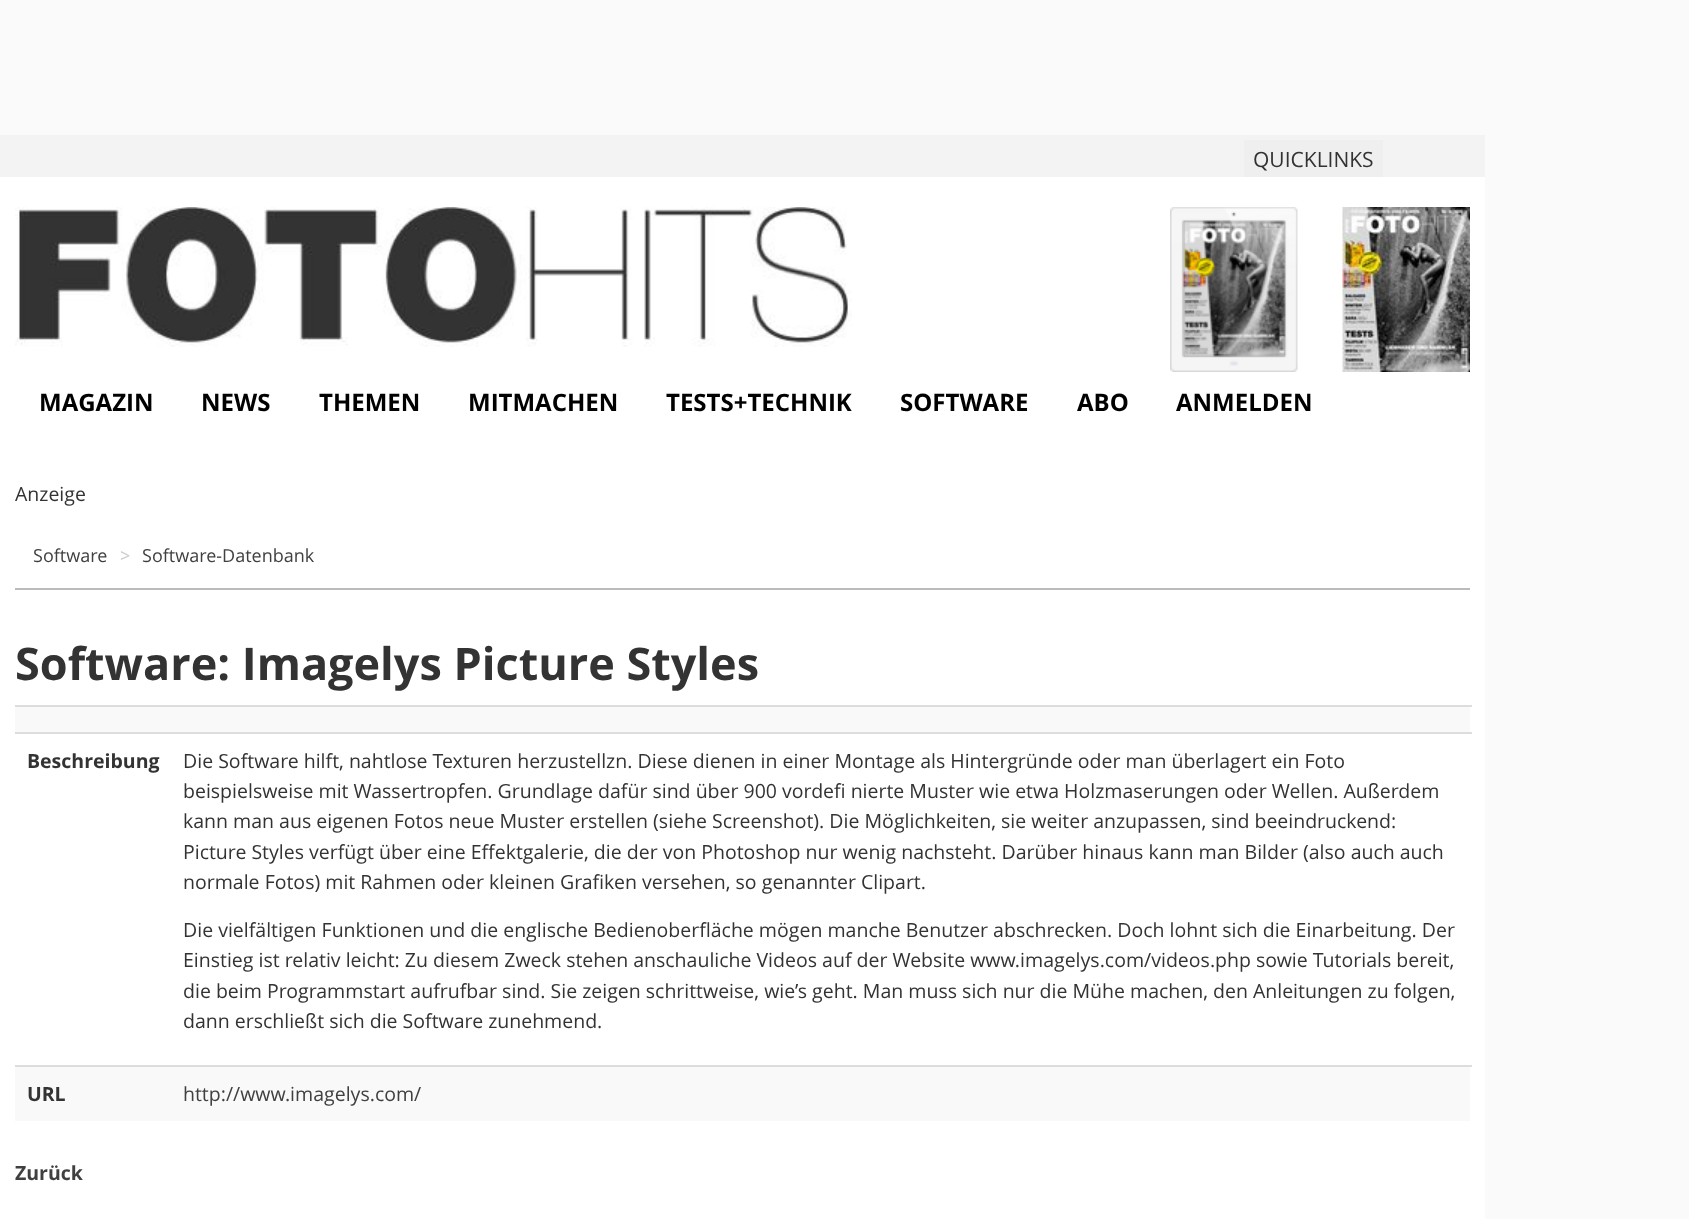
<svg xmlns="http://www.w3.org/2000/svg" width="1689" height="1219">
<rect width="100%" height="100%" fill="#fafafa"/>
<rect y="177" width="1485" height="1042" fill="#fff"/>
<rect y="135" width="1485" height="42" fill="#f3f3f3"/>
<rect x="1244" y="140" width="139" height="37" fill="#efefef"/>
<text x="1253" y="167" style="font-family:Open Sans;font-size:21px;fill:#333">QUICKLINKS</text>
<image x="15" y="207" width="837" height="140" href="media/1.png"/>
<image x="1170" y="207" width="128" height="165" href="media/2.png"/>
<image x="1342" y="207" width="128" height="165" href="media/3.png"/>
<text x="39" y="411" style="font-family:Open Sans;font-size:24px;font-weight:bold;fill:#000">MAGAZIN</text>
<text x="201" y="411" style="font-family:Open Sans;font-size:24px;font-weight:bold;fill:#000">NEWS</text>
<text x="319" y="411" style="font-family:Open Sans;font-size:24px;font-weight:bold;fill:#000">THEMEN</text>
<text x="468" y="411" style="font-family:Open Sans;font-size:24px;font-weight:bold;fill:#000">MITMACHEN</text>
<text x="666" y="411" style="font-family:Open Sans;font-size:24px;font-weight:bold;fill:#000">TESTS+TECHNIK</text>
<text x="900" y="411" style="font-family:Open Sans;font-size:24px;font-weight:bold;fill:#000">SOFTWARE</text>
<text x="1077" y="411" style="font-family:Open Sans;font-size:24px;font-weight:bold;fill:#000">ABO</text>
<text x="1176" y="411" style="font-family:Open Sans;font-size:24px;font-weight:bold;fill:#000">ANMELDEN</text>
<text x="15" y="501" style="font-family:Open Sans;font-size:19.5px;fill:#333">Anzeige</text>
<rect x="15" y="588" width="1455" height="2" fill="#bbb"/>
<text x="33" y="562" style="font-family:Open Sans;font-size:18px;fill:#404040">Software</text>
<text x="120" y="562" style="font-family:Open Sans;font-size:18px;fill:#ccc">&gt;</text>
<text x="142" y="562" style="font-family:Open Sans;font-size:18px;fill:#404040">Software-Datenbank</text>
<text x="15" y="680" style="font-family:Open Sans;font-size:45px;font-weight:bold;fill:#333">Software: Imagelys Picture Styles</text>
<rect x="15" y="707" width="1455" height="25" fill="#f9f9f9"/>
<rect x="15" y="705" width="1457" height="2" fill="#ddd"/>
<text x="27" y="768" style="font-family:Open Sans;font-size:19.5px;font-weight:bold;fill:#333">Beschreibung</text>
<rect x="15" y="732" width="1457" height="2" fill="#ddd"/>
<text x="183" y="768" style="font-family:Open Sans;font-size:19.5px;fill:#333">Die Software hilft, nahtlose Texturen herzustellzn. Diese dienen in einer Montage als Hintergründe oder man überlagert ein Foto</text>
<text x="183" y="798" style="font-family:Open Sans;font-size:19.5px;fill:#333">beispielsweise mit Wassertropfen. Grundlage dafür sind über 900 vordefi nierte Muster wie etwa Holzmaserungen oder Wellen. Außerdem</text>
<text x="183" y="828" style="font-family:Open Sans;font-size:19.5px;fill:#333">kann man aus eigenen Fotos neue Muster erstellen (siehe Screenshot). Die Möglichkeiten, sie weiter anzupassen, sind beeindruckend:</text>
<text x="183" y="859" style="font-family:Open Sans;font-size:19.5px;fill:#333">Picture Styles verfügt über eine Effektgalerie, die der von Photoshop nur wenig nachsteht. Darüber hinaus kann man Bilder (also auch auch</text>
<text x="183" y="889" style="font-family:Open Sans;font-size:19.5px;fill:#333">normale Fotos) mit Rahmen oder kleinen Grafiken versehen, so genannter Clipart.</text>
<text x="183" y="937" style="font-family:Open Sans;font-size:19.5px;fill:#333">Die vielfältigen Funktionen und die englische Bedienoberfläche mögen manche Benutzer abschrecken. Doch lohnt sich die Einarbeitung. Der</text>
<text x="183" y="967" style="font-family:Open Sans;font-size:19.5px;fill:#333">Einstieg ist relativ leicht: Zu diesem Zweck stehen anschauliche Videos auf der Website www.imagelys.com/videos.php sowie Tutorials bereit,</text>
<text x="183" y="998" style="font-family:Open Sans;font-size:19.5px;fill:#333">die beim Programmstart aufrufbar sind. Sie zeigen schrittweise, wie’s geht. Man muss sich nur die Mühe machen, den Anleitungen zu folgen,</text>
<text x="183" y="1028" style="font-family:Open Sans;font-size:19.5px;fill:#333">dann erschließt sich die Software zunehmend.</text>
<rect x="15" y="1067" width="1455" height="54" fill="#f9f9f9"/>
<text x="27" y="1101" style="font-family:Open Sans;font-size:19.5px;font-weight:bold;fill:#333">URL</text>
<rect x="15" y="1065" width="1457" height="2" fill="#ddd"/>
<text x="183" y="1101" style="font-family:Open Sans;font-size:19.5px;fill:#404040">http://www.imagelys.com/</text>
<text x="15" y="1180" style="font-family:Open Sans;font-size:19.5px;font-weight:bold;fill:#404040">Zurück</text>
</svg>
